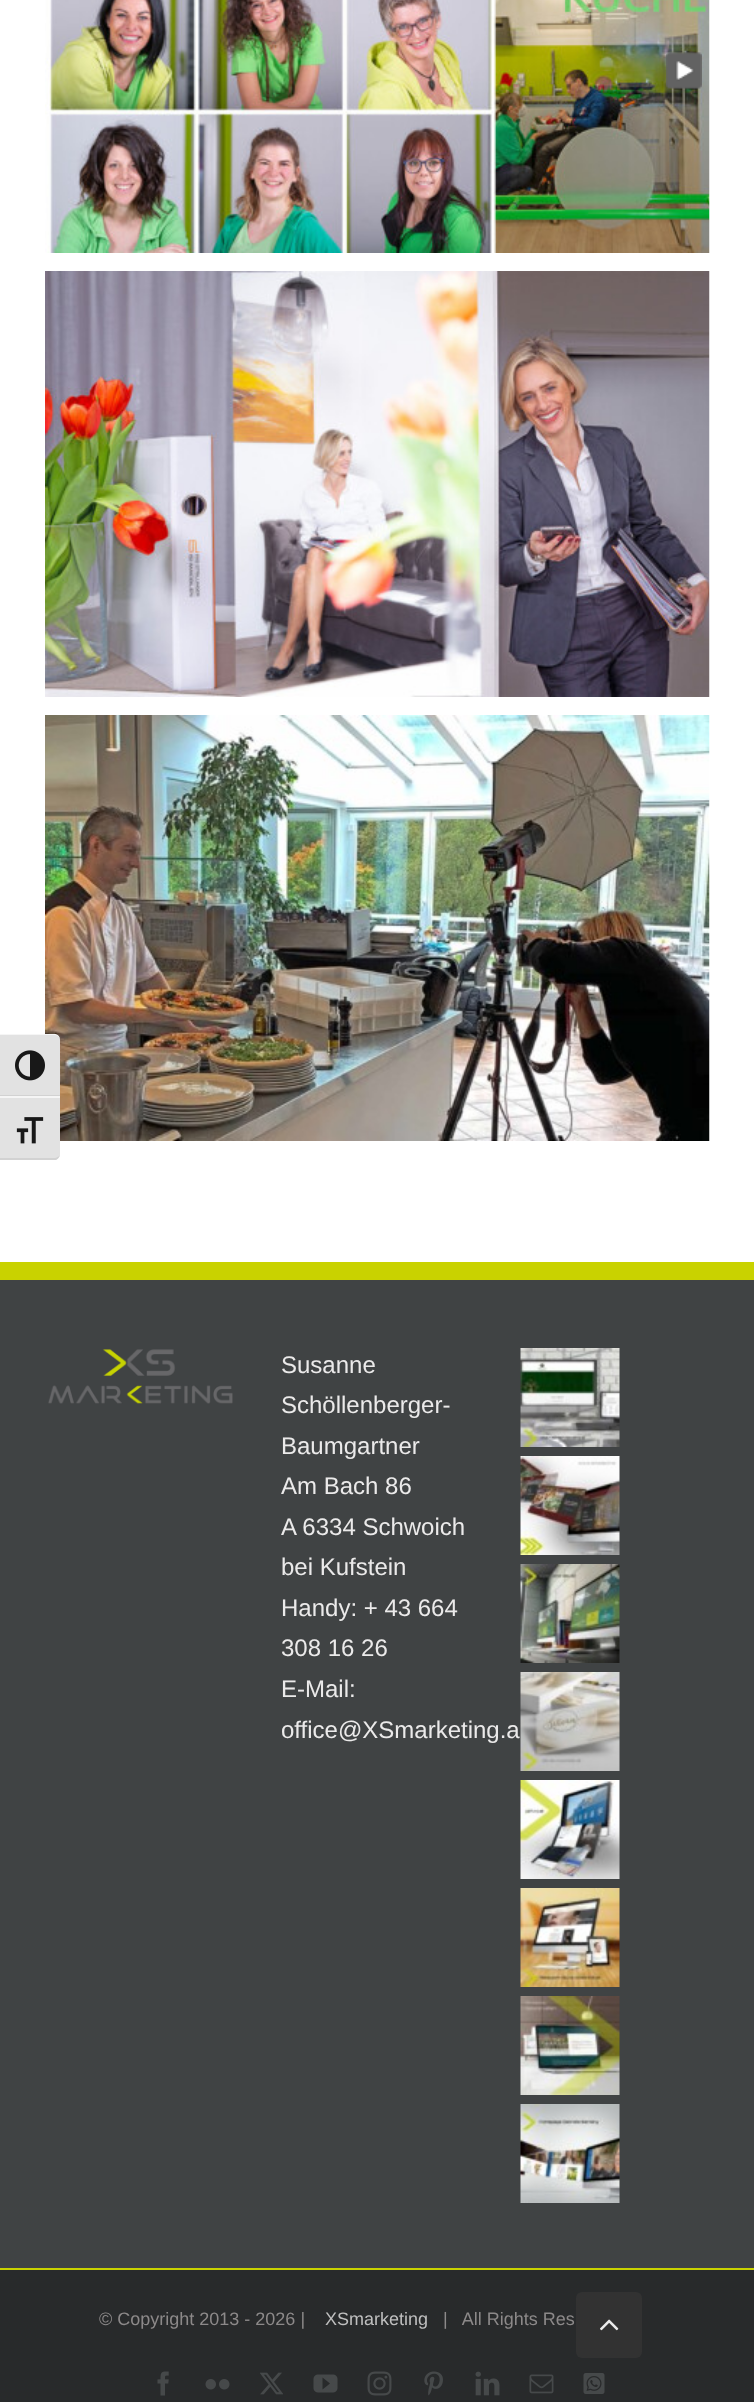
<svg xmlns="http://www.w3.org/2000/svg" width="754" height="2402">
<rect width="100%" height="100%" fill="#fff"/>
<image x="45" y="0" width="665" height="253" href="media/4.png"/>
<image x="666" y="52" width="36" height="37" href="media/1.png"/>
<image x="45" y="715" width="665" height="426" href="media/6.png"/>
<path d="M0 1034h54c3.5 0 6 2.5 6 6v57h-60z" fill="#e2e2e2"/>
<path d="M0 1035h54c3 0 6 2 6 5c0-4-3-6-6-6h-54z" fill="#f5f5f5"/>
<rect y="1095" width="60" height="1" fill="#d2d2d2"/>
<image x="15" y="1050" width="30" height="31" href="media/2.png"/>
<path d="M0 1097h60v57c0 3.5-2.5 6-6 6h-54z" fill="#e2e2e2"/>
<rect y="1096" width="60" height="2" fill="#f5f5f5"/>
<path d="M56 1160c2-1 4-4 4-6c0 2-3 4-6 4h-54v2z" fill="#d2d2d2"/>
<image x="16" y="1117" width="28" height="27" href="media/3.png"/>
<image x="45" y="271" width="665" height="426" href="media/5.png"/>
<rect y="1280" width="754" height="988" fill="#404344"/>
<rect y="1262" width="754" height="18" fill="#c9d200"/>
<image x="48" y="1349" width="185" height="55" href="media/7.png"/>
<text x="281" y="1373" style="font-family:Liberation Sans;font-size:24px;fill:#ebeaea">Susanne</text>
<text x="281" y="1413" style="font-family:Liberation Sans;font-size:24px;fill:#ebeaea">Schöllenberger-</text>
<text x="281" y="1454" style="font-family:Liberation Sans;font-size:24px;fill:#ebeaea">Baumgartner</text>
<text x="281" y="1494" style="font-family:Liberation Sans;font-size:24px;fill:#ebeaea">Am Bach 86</text>
<text x="281" y="1535" style="font-family:Liberation Sans;font-size:24px;fill:#ebeaea">A 6334 Schwoich</text>
<text x="281" y="1575" style="font-family:Liberation Sans;font-size:24px;fill:#ebeaea">bei Kufstein</text>
<text x="281" y="1616" style="font-family:Liberation Sans;font-size:24px;fill:#ebeaea">Handy: + 43 664</text>
<text x="281" y="1656" style="font-family:Liberation Sans;font-size:24px;fill:#ebeaea">308 16 26</text>
<text x="281" y="1697" style="font-family:Liberation Sans;font-size:24px;fill:#ebeaea">E-Mail:</text>
<text x="281" y="1738" style="font-family:Liberation Sans;font-size:24px;fill:#ebeaea">office@XSmarketing.a</text>
<image x="520" y="1348" width="100" height="99" href="media/8.png"/>
<image x="520" y="1456" width="100" height="99" href="media/9.png"/>
<image x="520" y="1564" width="100" height="99" href="media/10.png"/>
<image x="520" y="1672" width="100" height="99" href="media/11.png"/>
<image x="520" y="1780" width="100" height="99" href="media/12.png"/>
<image x="520" y="1888" width="100" height="99" href="media/13.png"/>
<image x="520" y="1996" width="100" height="99" href="media/14.png"/>
<image x="520" y="2104" width="100" height="99" href="media/15.png"/>
<rect y="2270" width="754" height="132" fill="#282a2b"/>
<rect y="2268" width="754" height="2" fill="#c9d200"/>
<text x="99" y="2325" style="font-family:Liberation Sans;font-size:18px;fill:#8c8989">© Copyright 2013 - 2026 |</text>
<text x="325" y="2325" style="font-family:Liberation Sans;font-size:18px;fill:#bfbfbf">XSmarketing</text>
<text x="443" y="2325" style="font-family:Liberation Sans;font-size:18px;fill:#8c8989" xml:space="preserve">|   All Rights Res</text>
<image x="157" y="2371" width="12" height="25" href="media/16.png"/>
<image x="205" y="2379" width="25" height="11" href="media/17.png"/>
<image x="260" y="2372" width="23" height="23" href="media/18.png"/>
<image x="313" y="2374" width="25" height="19" href="media/19.png"/>
<image x="367" y="2371" width="25" height="25" href="media/20.png"/>
<image x="424" y="2371" width="19" height="25" href="media/21.png"/>
<image x="475" y="2371" width="25" height="25" href="media/22.png"/>
<image x="529" y="2374" width="25" height="20" href="media/23.png"/>
<image x="583" y="2373" width="22" height="21" href="media/24.png"/>
<rect x="576" y="2292" width="66" height="66" rx="6" fill="#333333e6"/>
<image x="600" y="2319" width="19" height="12" href="media/25.png"/>
</svg>
